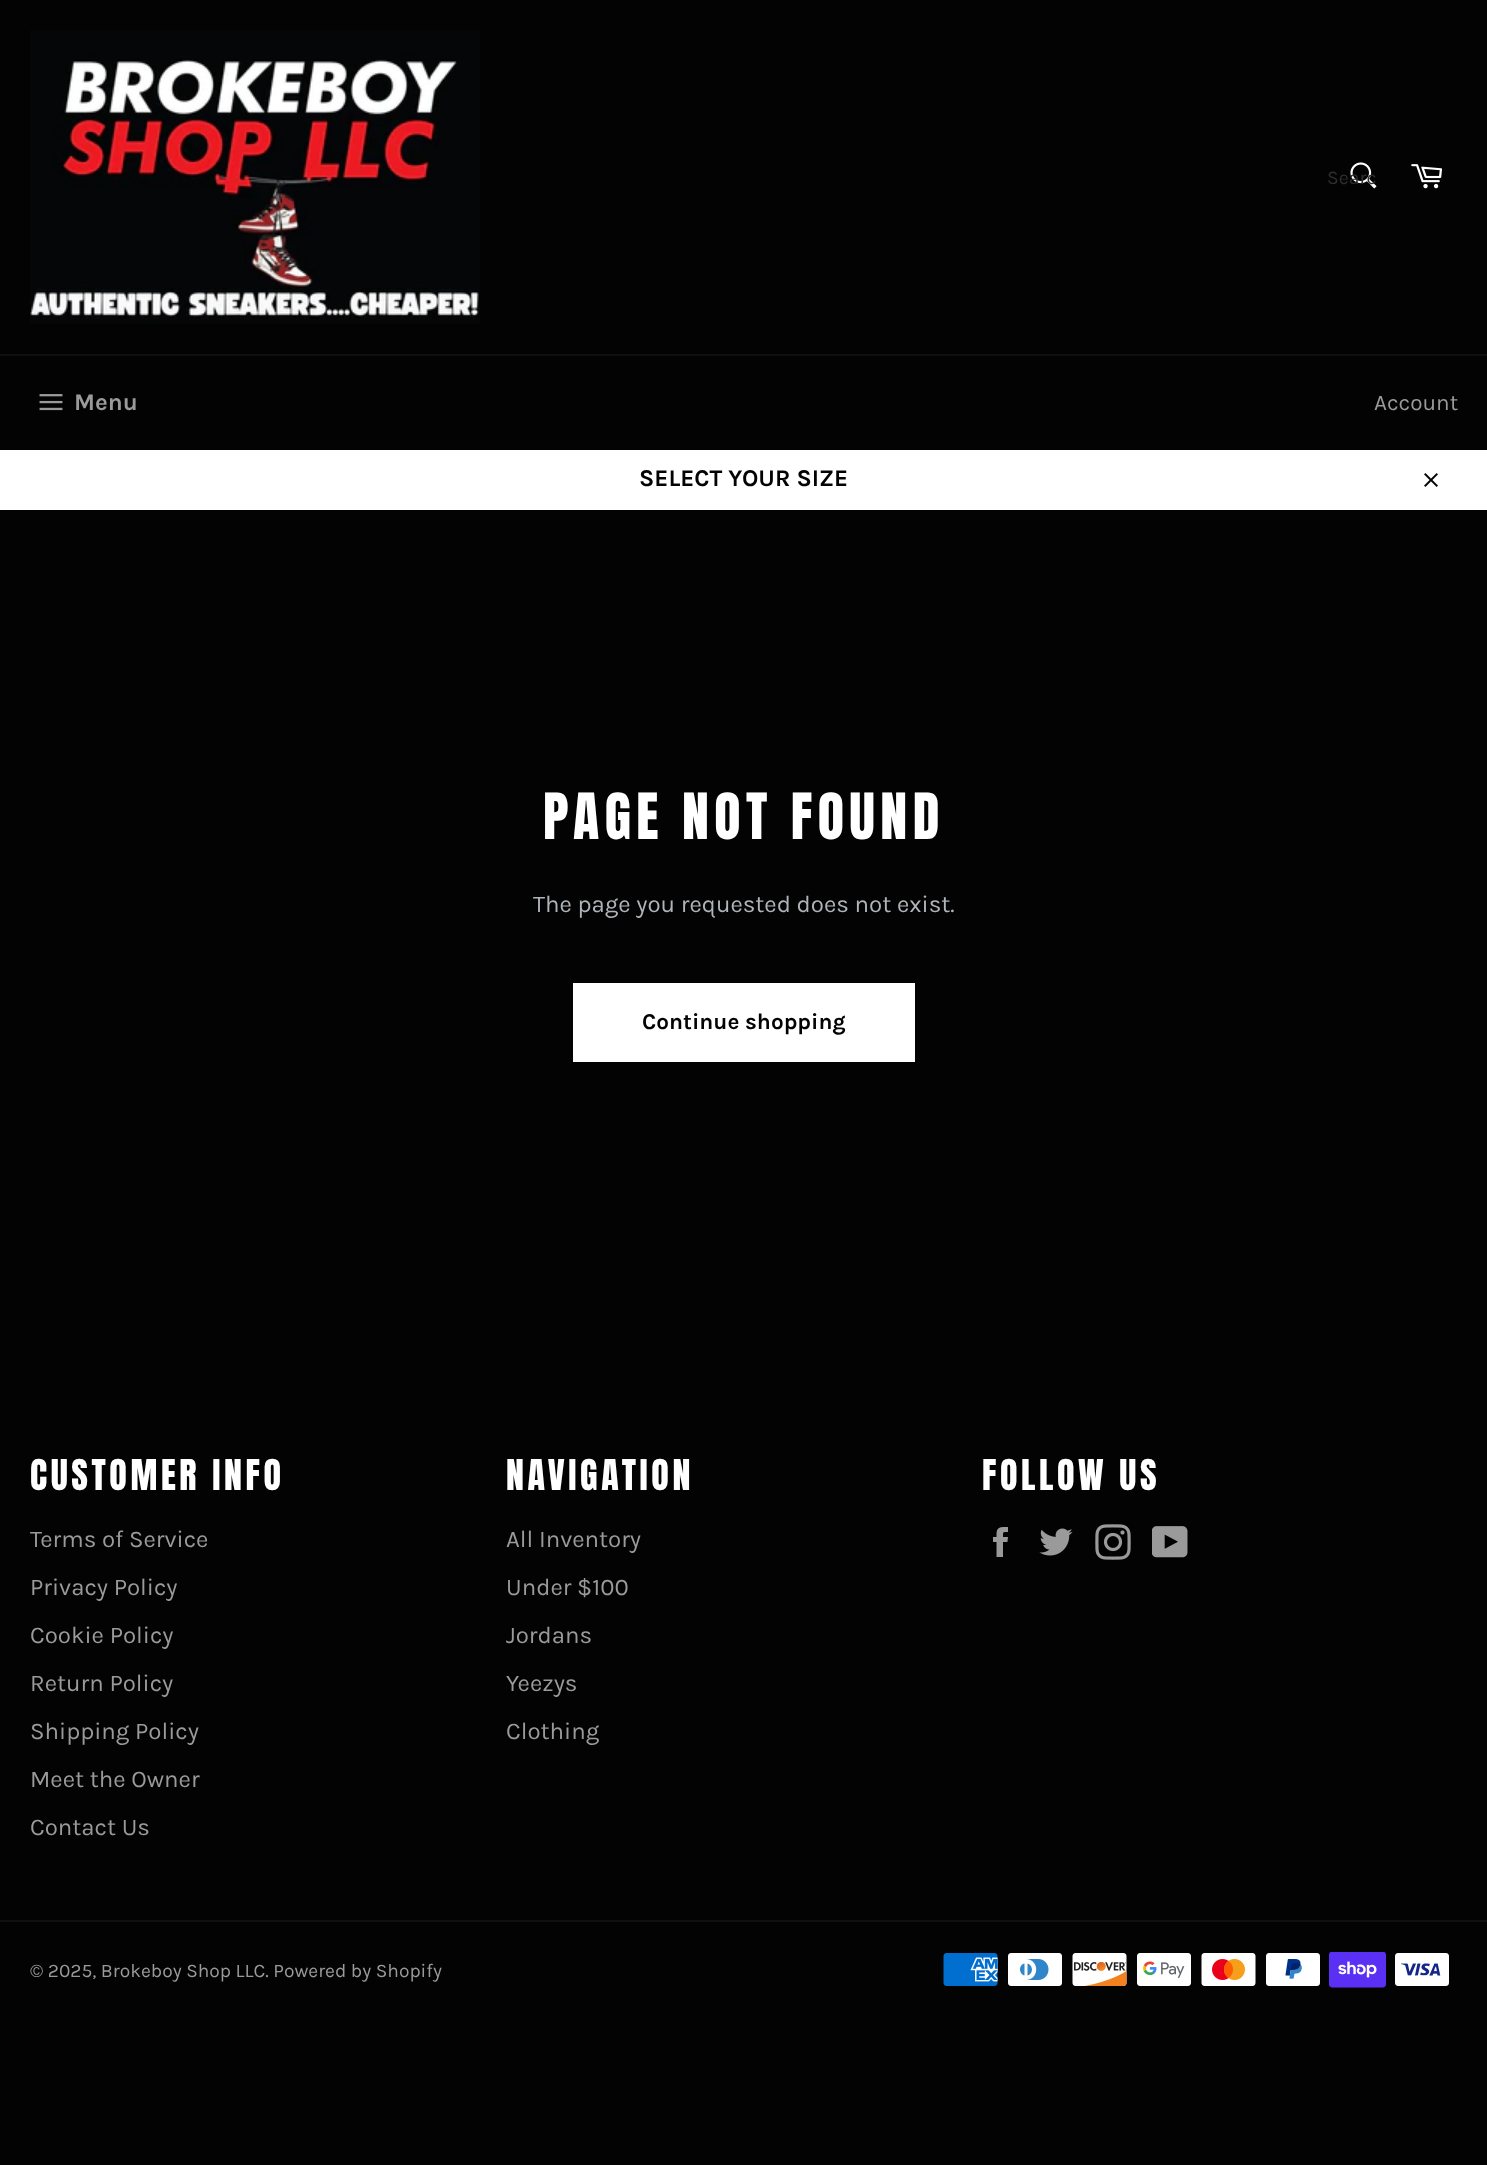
<svg xmlns="http://www.w3.org/2000/svg" width="1487" height="2165">
<rect width="100%" height="100%" fill="#030303"/>
<image x="30" y="30" width="450" height="294" href="media/1.png"/>
<image x="1350" y="162" width="27" height="27" href="media/2.png"/>
<text x="1327" y="184" style="font-family:Karla;font-size:19.5px;fill:#2e2e2e">Searc</text>
<image x="1411" y="164" width="31" height="25" href="media/3.png"/>
<rect y="354" width="1487" height="2" fill="#101010"/>
<image x="39" y="394" width="24" height="17" href="media/4.png"/>
<text x="74" y="410" style="font-family:Karla;font-size:24px;font-weight:bold;fill:#9a9a9a">Menu</text>
<text x="1374" y="410" style="font-family:Karla;font-size:22.5px;fill:#9a9a9a">Account</text>
<rect y="450" width="1487" height="60" fill="#fff"/>
<text x="639" y="486" style="font-family:Karla;font-size:24px;font-weight:bold;fill:#030303">SELECT YOUR SIZE</text>
<image x="1424" y="473" width="14" height="14" href="media/5.png"/>
<text x="543" y="839" style="font-family:Anton;font-size:54px;letter-spacing:5.4px;fill:#fff">PAGE NOT FOUND</text>
<text x="533" y="912" style="font-family:Karla;font-size:24px;fill:#aeb4b9">The page you requested does not exist.</text>
<rect x="573" y="983" width="342" height="79" fill="#fff"/>
<text x="642" y="1029" style="font-family:Karla;font-size:22.5px;font-weight:bold;fill:#030303">Continue shopping</text>
<text x="30" y="1490" style="font-family:Anton;font-size:36px;letter-spacing:3.6px;fill:#fff">CUSTOMER INFO</text>
<text x="30" y="1547" style="font-family:Karla;font-size:24px;fill:#9a9a9a">Terms of Service</text>
<text x="30" y="1595" style="font-family:Karla;font-size:24px;fill:#9a9a9a">Privacy Policy</text>
<text x="30" y="1643" style="font-family:Karla;font-size:24px;fill:#9a9a9a">Cookie Policy</text>
<text x="30" y="1691" style="font-family:Karla;font-size:24px;fill:#9a9a9a">Return Policy</text>
<text x="30" y="1739" style="font-family:Karla;font-size:24px;fill:#9a9a9a">Shipping Policy</text>
<text x="30" y="1787" style="font-family:Karla;font-size:24px;fill:#9a9a9a">Meet the Owner</text>
<text x="30" y="1835" style="font-family:Karla;font-size:24px;fill:#9a9a9a">Contact Us</text>
<text x="506" y="1490" style="font-family:Anton;font-size:36px;letter-spacing:3.6px;fill:#fff">NAVIGATION</text>
<text x="506" y="1547" style="font-family:Karla;font-size:24px;fill:#9a9a9a">All Inventory</text>
<text x="506" y="1595" style="font-family:Karla;font-size:24px;fill:#9a9a9a">Under $100</text>
<text x="506" y="1643" style="font-family:Karla;font-size:24px;fill:#9a9a9a">Jordans</text>
<text x="506" y="1691" style="font-family:Karla;font-size:24px;fill:#9a9a9a">Yeezys</text>
<text x="506" y="1739" style="font-family:Karla;font-size:24px;fill:#9a9a9a">Clothing</text>
<text x="982" y="1490" style="font-family:Anton;font-size:36px;letter-spacing:3.6px;fill:#fff">FOLLOW US</text>
<image x="993" y="1527" width="15" height="30" href="media/6.png"/>
<image x="1039" y="1528" width="34" height="28" href="media/7.png"/>
<image x="1095" y="1524" width="36" height="36" href="media/8.png"/>
<image x="1152" y="1526" width="36" height="32" href="media/9.png"/>
<rect y="1920" width="1487" height="2" fill="#101010"/>
<text x="30" y="1977" style="font-family:Karla;font-size:19.2px;fill:#9a9a9a">© 2025, Brokeboy Shop LLC. Powered by Shopify</text>
<image x="943" y="1953" width="55" height="33" href="media/10.png"/>
<image x="1008" y="1953" width="54" height="33" href="media/11.png"/>
<image x="1072" y="1953" width="55" height="33" href="media/12.png"/>
<image x="1137" y="1953" width="54" height="33" href="media/13.png"/>
<image x="1201" y="1953" width="55" height="33" href="media/14.png"/>
<image x="1266" y="1953" width="54" height="33" href="media/15.png"/>
<image x="1329" y="1952" width="57" height="36" href="media/16.png"/>
<image x="1395" y="1953" width="54" height="33" href="media/17.png"/>
</svg>
